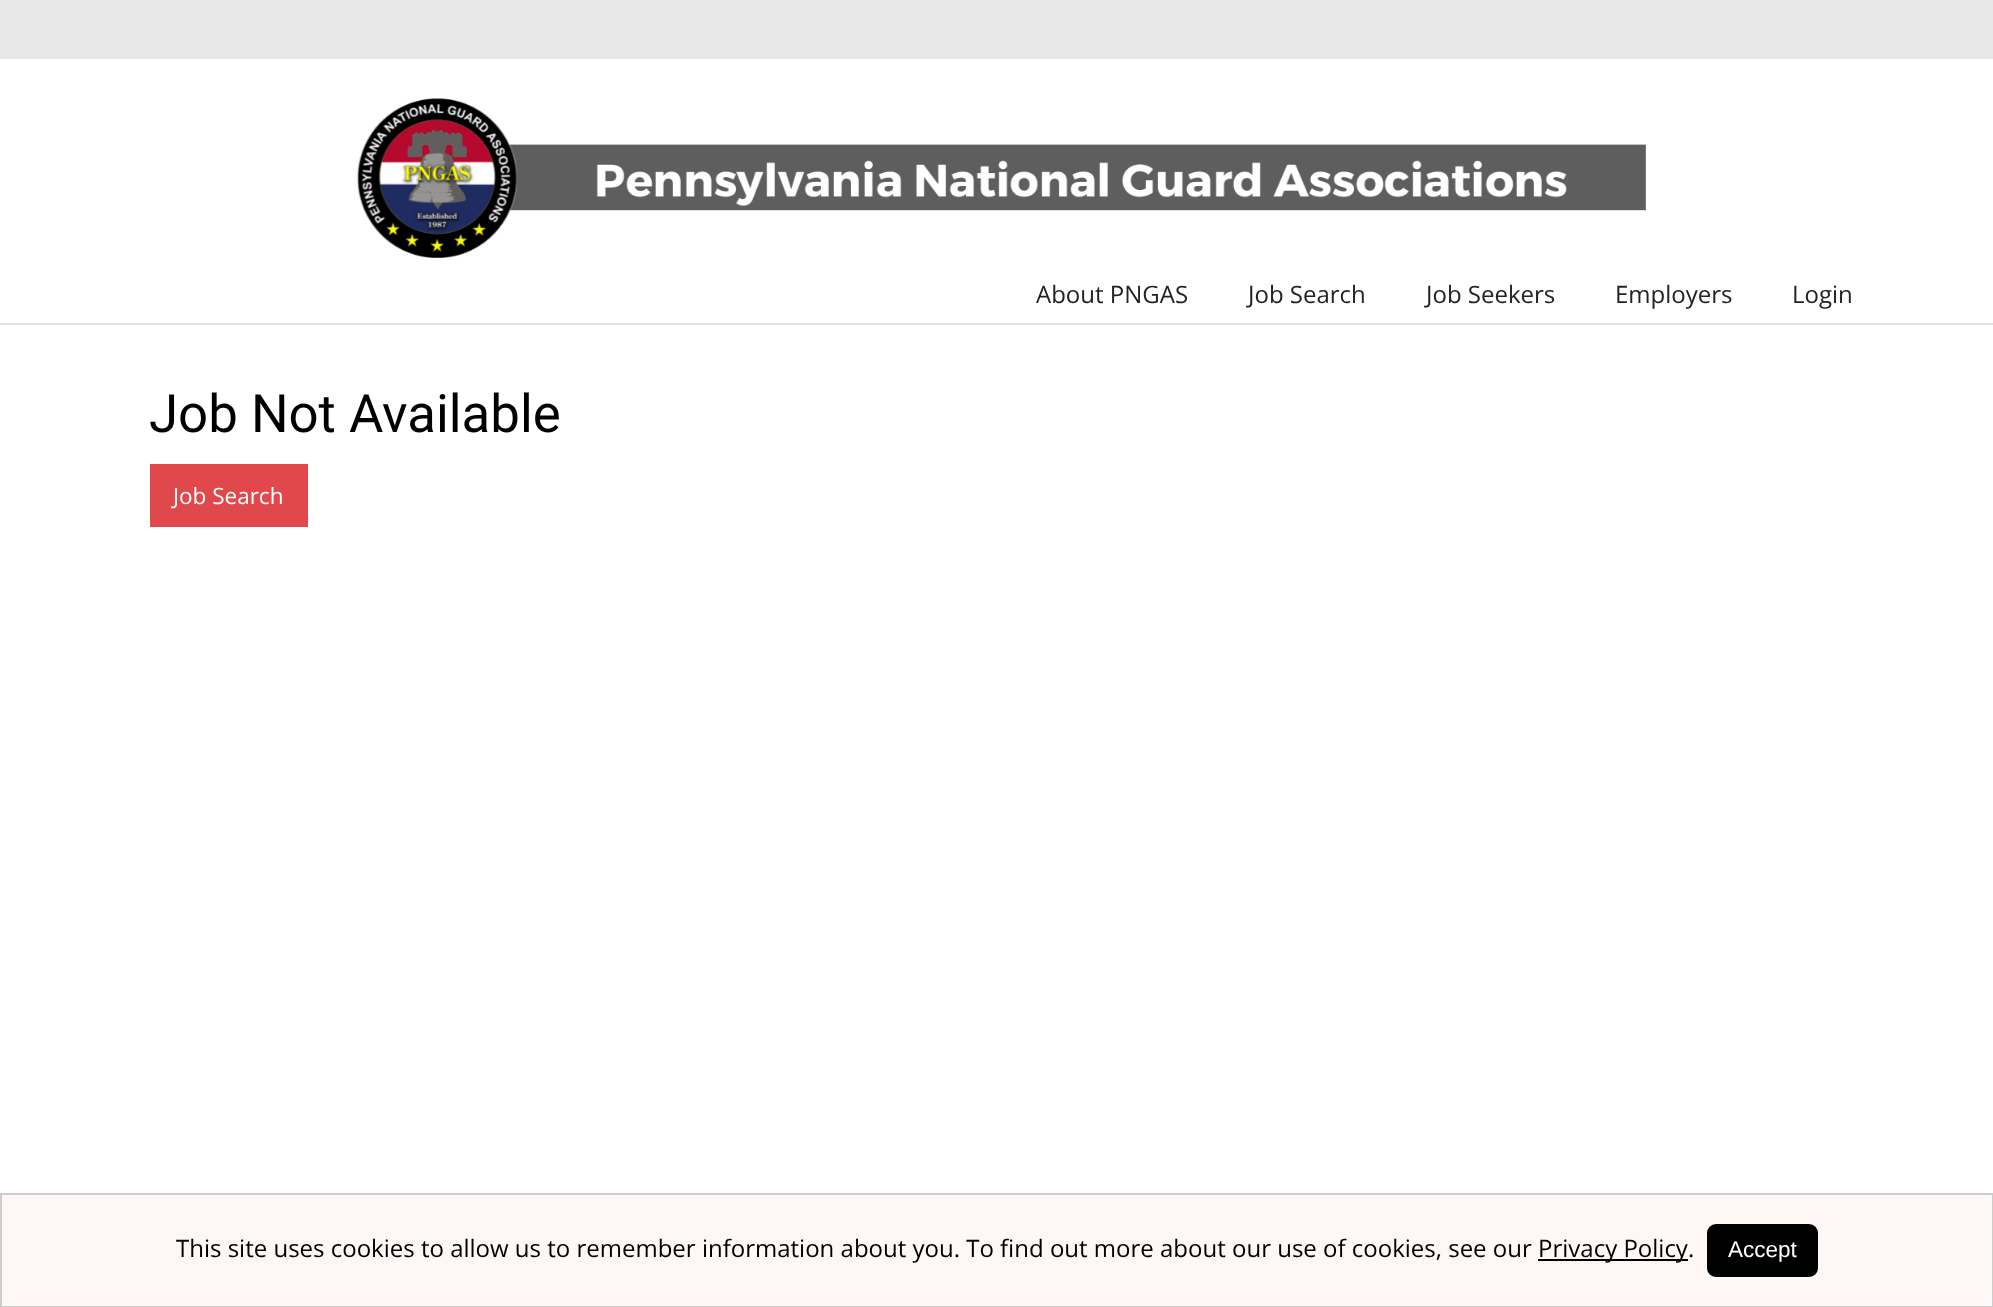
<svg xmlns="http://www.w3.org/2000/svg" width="1993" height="1307">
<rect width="100%" height="100%" fill="#fff"/>
<rect y="323" width="1993" height="2" fill="#e3e3e3"/>
<rect width="1993" height="59" fill="#e7e7e7"/>
<image x="357" y="98" width="1289" height="160" href="media/1.png"/>
<text x="1036" y="303" style="font-family:Open Sans;font-size:24px;fill:#232323">About PNGAS</text>
<text x="1248" y="303" style="font-family:Open Sans;font-size:24px;fill:#232323">Job Search</text>
<text x="1426" y="303" style="font-family:Open Sans;font-size:24px;fill:#232323">Job Seekers</text>
<text x="1615" y="303" style="font-family:Open Sans;font-size:24px;fill:#232323">Employers</text>
<text x="1792" y="303" style="font-family:Open Sans;font-size:24px;fill:#232323">Login</text>
<text x="149" y="432" style="font-family:Roboto;font-size:52.75px;fill:#000">Job Not Available</text>
<rect x="150" y="464" width="158" height="63" fill="#e0484c"/>
<text x="173" y="504" style="font-family:Open Sans;font-size:22.5px;fill:#fff">Job Search</text>
<rect x="1" y="1194" width="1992" height="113" fill="#fff6f6" stroke="#ccc" stroke-width="2"/>
<text x="176" y="1257" style="font-family:Open Sans;font-size:24px;fill:#000">This site uses cookies to allow us to remember information about you. To find out more about our use of cookies, see our</text>
<rect x="1538" y="1259" width="150" height="2" fill="#000"/>
<text x="1538" y="1257" style="font-family:Open Sans;font-size:24px;fill:#000">Privacy Policy.</text>
<rect x="1707" y="1224" width="111" height="53" rx="9" fill="#000"/>
<text x="1728" y="1257" style="font-family:Liberation Sans;font-size:22.5px;fill:#fff">Accept</text>
</svg>
